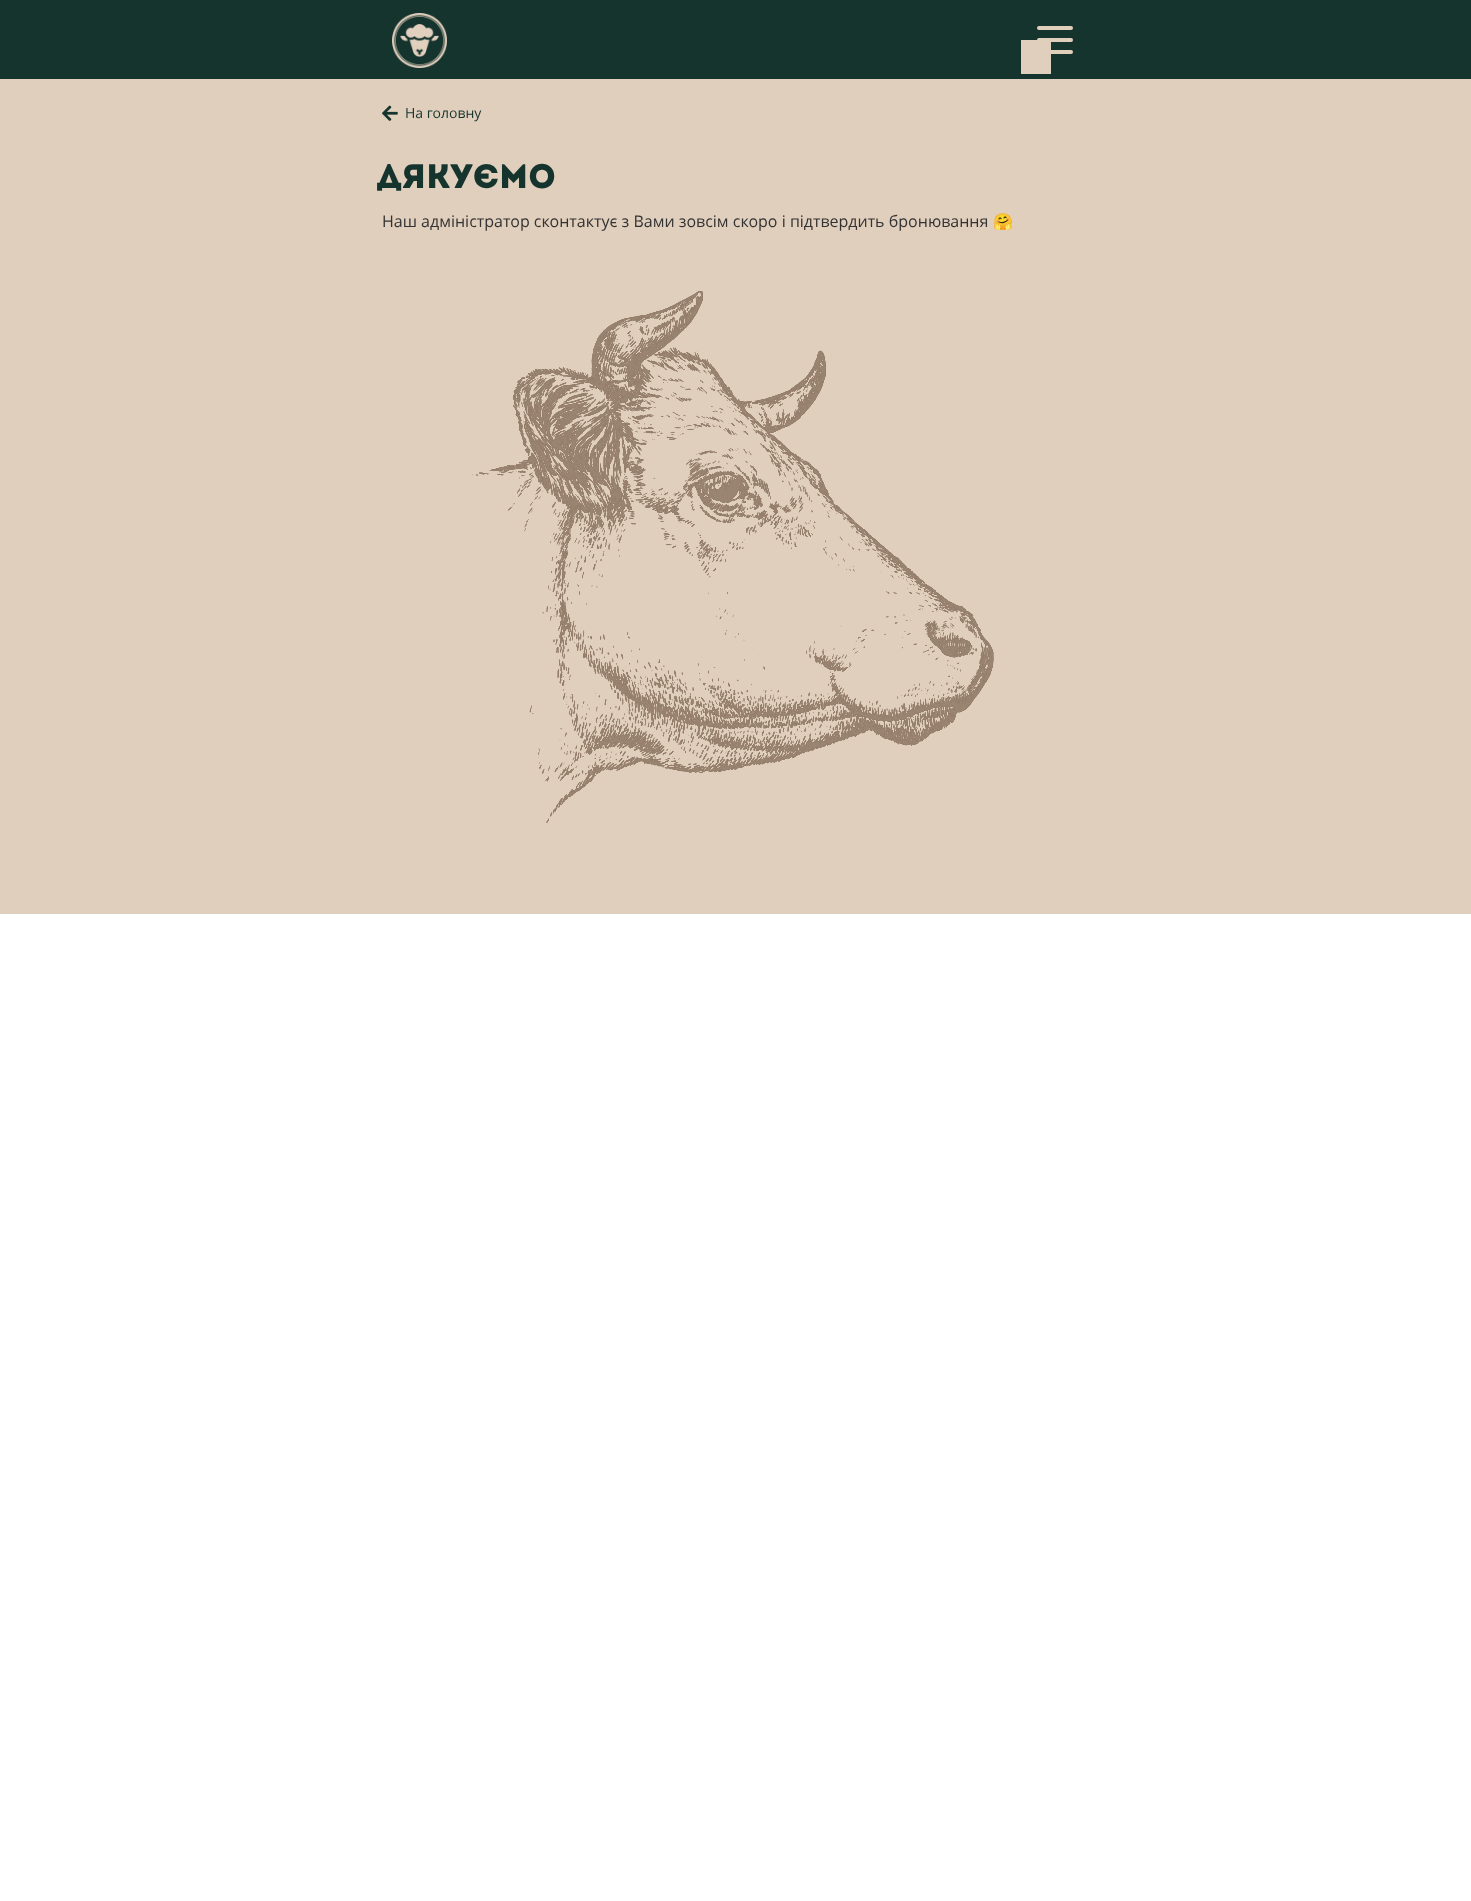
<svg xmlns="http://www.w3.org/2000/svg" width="1471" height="1901">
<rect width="100%" height="100%" fill="#fff"/>
<rect width="1471" height="79" fill="#16342e"/>
<image x="392" y="13" width="55" height="55" href="media/1.png"/>
<rect x="1037" y="38" width="36" height="4" rx="2" fill="#e0cfbd"/>
<rect x="1037" y="50" width="36" height="4" rx="2" fill="#e0cfbd"/>
<rect x="1021" y="40" width="30" height="34" fill="#e0cfbd"/>
<rect x="1037" y="26" width="36" height="4" rx="2" fill="#e0cfbd"/>
<rect y="79" width="1471" height="835" fill="#e0cfbd"/>
<image x="382" y="105" width="16" height="16" href="media/2.png"/>
<text x="405" y="118" style="font-family:Open Sans;font-size:14px;fill:#16342e">На головну</text>
<text x="377" y="188" style="font-family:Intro;font-size:34px;fill:#16342e">ДЯКУЄМО</text>
<text x="382" y="227" style="font-family:Open Sans;font-size:16px;fill:#333">Наш адміністратор сконтактує з Вами зовсім скоро і підтвердить бронювання</text>
<text x="993" y="227" style="font-family:Noto Color Emoji;font-size:16px;fill:#333">🤗</text>
<image x="472" y="291" width="522" height="532" href="media/3.png"/>
</svg>
